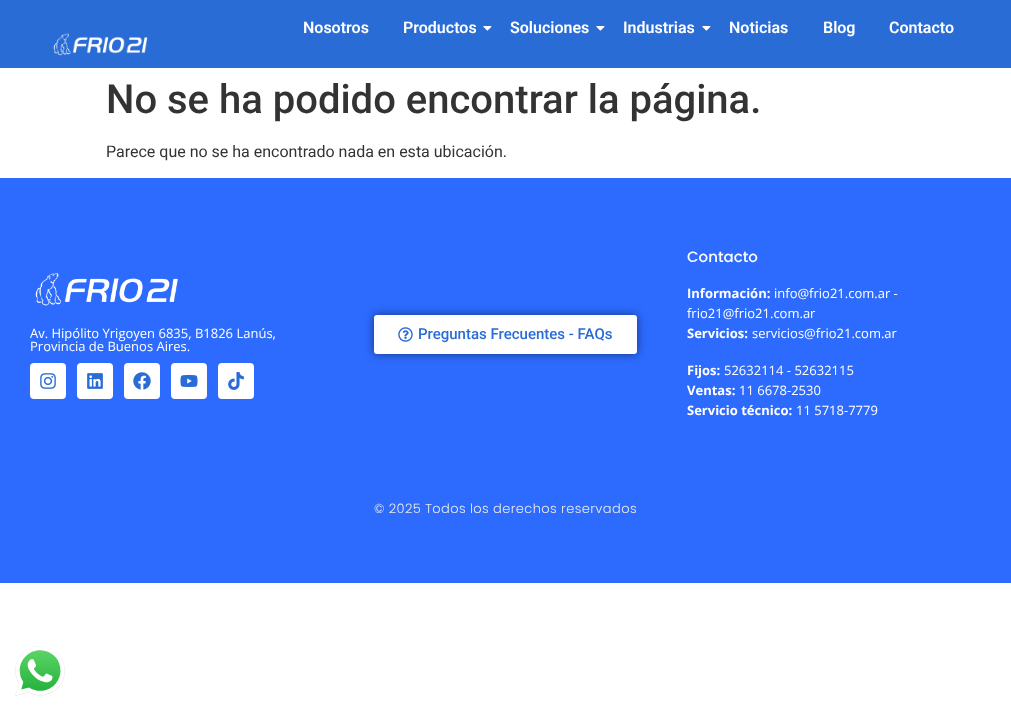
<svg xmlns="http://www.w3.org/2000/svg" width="1011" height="711">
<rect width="100%" height="100%" fill="#fff"/>
<rect width="1011" height="68" fill="#2a6cd6"/>
<text x="303" y="33" style="font-family:Roboto;font-size:16px;font-weight:600;fill:#fff">Nosotros</text>
<text x="403" y="33" style="font-family:Roboto;font-size:16px;font-weight:600;fill:#fff">Productos</text>
<image x="483" y="26" width="9" height="5" href="media/1.png"/>
<text x="510" y="33" style="font-family:Roboto;font-size:16px;font-weight:600;fill:#fff">Soluciones</text>
<image x="596" y="26" width="9" height="5" href="media/1.png"/>
<text x="623" y="33" style="font-family:Roboto;font-size:16px;font-weight:600;fill:#fff">Industrias</text>
<image x="702" y="26" width="9" height="5" href="media/1.png"/>
<text x="729" y="33" style="font-family:Roboto;font-size:16px;font-weight:600;fill:#fff">Noticias</text>
<text x="823" y="33" style="font-family:Roboto;font-size:16px;font-weight:600;fill:#fff">Blog</text>
<text x="889" y="33" style="font-family:Roboto;font-size:16px;font-weight:600;fill:#fff">Contacto</text>
<image x="53" y="33" width="95" height="23" href="media/2.png"/>
<text x="106" y="113" style="font-family:Roboto;font-size:40px;font-weight:500;fill:#333">No se ha podido encontrar la página.</text>
<text x="106" y="157" style="font-family:Roboto;font-size:16px;fill:#333">Parece que no se ha encontrado nada en esta ubicación.</text>
<rect y="178" width="1011" height="405" fill="#2d6bff"/>
<image x="35" y="273" width="143" height="33" href="media/3.png"/>
<text x="30" y="338" style="font-family:Open Sans;font-size:13px;fill:#fff">Av. Hipólito Yrigoyen 6835, B1826 Lanús,</text>
<text x="30" y="351" style="font-family:Open Sans;font-size:13px;fill:#fff">Provincia de Buenos Aires.</text>
<rect x="30" y="363" width="36" height="36" rx="4" fill="#fff"/>
<image x="40" y="373" width="16" height="16" href="media/4.png"/>
<rect x="77" y="363" width="36" height="36" rx="4" fill="#fff"/>
<image x="87" y="373" width="16" height="16" href="media/5.png"/>
<rect x="124" y="363" width="36" height="36" rx="4" fill="#fff"/>
<image x="133" y="372" width="18" height="18" href="media/6.png"/>
<rect x="171" y="363" width="36" height="36" rx="4" fill="#fff"/>
<image x="180" y="375" width="18" height="12" href="media/7.png"/>
<rect x="218" y="363" width="36" height="36" rx="4" fill="#fff"/>
<image x="228" y="372" width="16" height="18" href="media/8.png"/>
<rect x="374" y="315" width="263" height="39" rx="3" fill="#00000080" filter="blur(5px)"/>
<rect x="374" y="315" width="263" height="39" rx="3" fill="#fff"/>
<image x="398" y="327" width="15" height="15" href="media/9.png"/>
<text x="418" y="339" style="font-family:Roboto;font-size:15px;font-weight:500;fill:#2a6cd6">Preguntas Frecuentes - FAQs</text>
<text x="687" y="262" style="font-family:Poppins;font-size:15px;font-weight:500;fill:#fff">Contacto</text>
<text x="687" y="298" style="font-family:Open Sans;font-size:13px;font-weight:bold;fill:#fff">Información:</text>
<text x="774" y="298" style="font-family:Open Sans;font-size:13px;fill:#fff">info@frio21.com.ar -</text>
<text x="687" y="318" style="font-family:Open Sans;font-size:13px;fill:#fff">frio21@frio21.com.ar</text>
<text x="687" y="338" style="font-family:Open Sans;font-size:13px;font-weight:bold;fill:#fff">Servicios:</text>
<text x="752" y="338" style="font-family:Open Sans;font-size:13px;fill:#fff">servicios@frio21.com.ar</text>
<text x="687" y="375" style="font-family:Open Sans;font-size:13px;font-weight:bold;fill:#fff">Fijos:</text>
<text x="724" y="375" style="font-family:Open Sans;font-size:13px;fill:#fff">52632114 - 52632115</text>
<text x="687" y="395" style="font-family:Open Sans;font-size:13px;font-weight:bold;fill:#fff">Ventas:</text>
<text x="739" y="395" style="font-family:Open Sans;font-size:13px;fill:#fff">11 6678-2530</text>
<text x="687" y="415" style="font-family:Open Sans;font-size:13px;font-weight:bold;fill:#fff">Servicio técnico:</text>
<text x="796" y="415" style="font-family:Open Sans;font-size:13px;fill:#fff">11 5718-7779</text>
<text x="374" y="513" style="font-family:Poppins;font-size:13px;font-weight:300;letter-spacing:0.4px;fill:#eaeaea">© 2025 Todos los derechos reservados</text>
<image x="15" y="646" width="50" height="50" href="media/10.png"/>
</svg>
